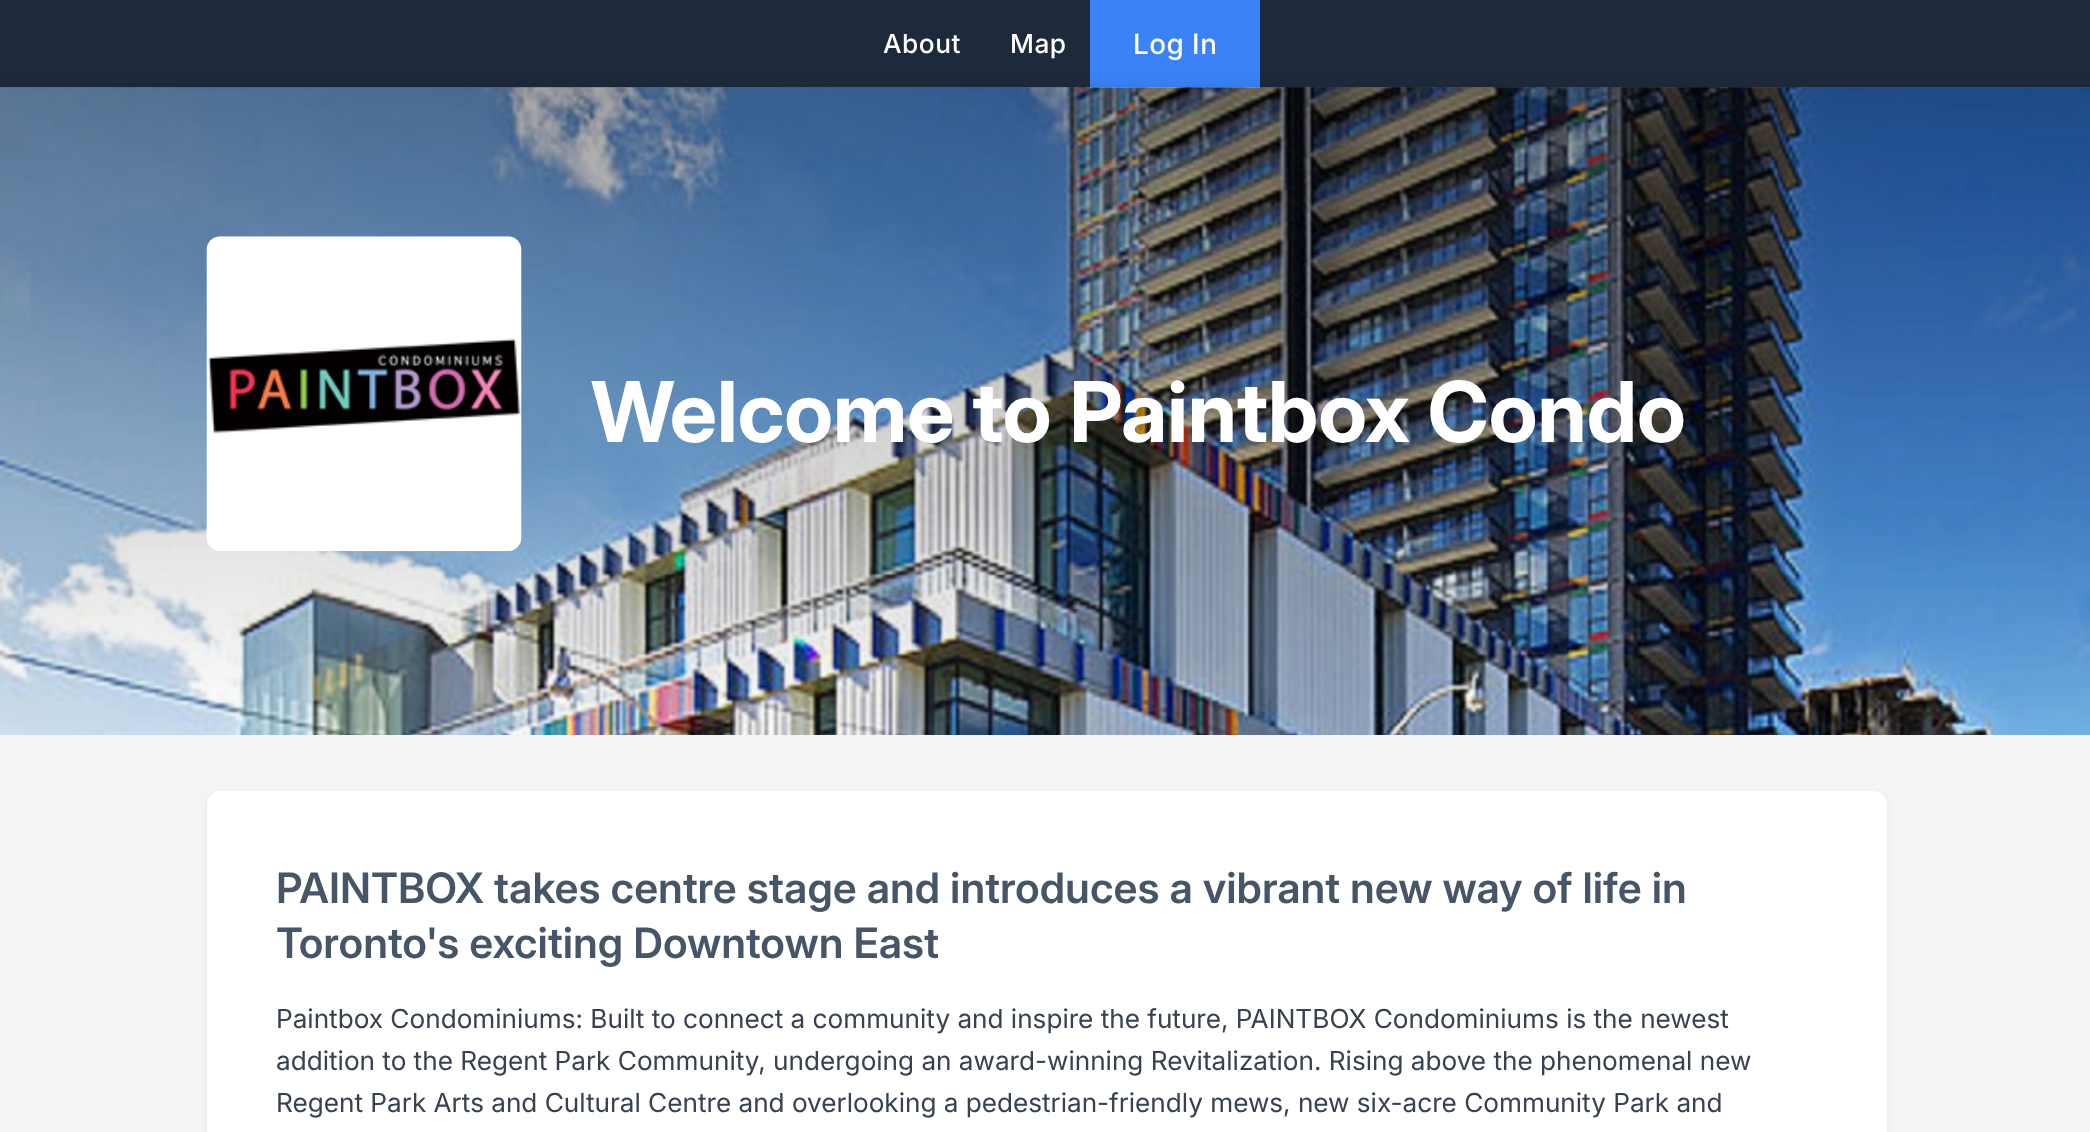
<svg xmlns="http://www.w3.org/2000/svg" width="2090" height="1132">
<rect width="100%" height="100%" fill="#1e293b"/>
<text x="883" y="53" style="font-family:Inter;font-size:26.25px;font-weight:500;letter-spacing:0.5px;fill:#fff">About</text>
<text x="1010" y="53" style="font-family:Inter;font-size:26.25px;font-weight:500;letter-spacing:0.5px;fill:#fff">Map</text>
<rect x="1090" width="170" height="88" fill="#3b82f6"/>
<text x="1133" y="54" style="font-family:'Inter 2';font-size:28px;font-weight:500;letter-spacing:0.5px;fill:#fff">Log In</text>
<rect x="2" y="91" width="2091" height="648" fill="#00000026" filter="blur(9px)"/>
<image x="0" y="87" width="2090" height="648" href="media/1.png"/>
<image x="206" y="236" width="316" height="316" href="media/2.png"/>
<text x="591" y="442" style="font-family:Inter;font-size:84px;font-weight:bold;fill:#fff">Welcome to Paintbox Condo</text>
<rect y="735" width="2090" height="397" fill="#f3f4f6"/>
<rect x="207" y="795" width="1680" height="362" rx="14" fill="#0000000f" filter="blur(3.5px)"/>
<rect x="207" y="791" width="1680" height="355" rx="14" fill="#fff"/>
<text x="276" y="903" style="font-family:Inter;font-size:42px;font-weight:600;fill:#475569">PAINTBOX takes centre stage and introduces a vibrant new way of life in</text>
<text x="276" y="958" style="font-family:Inter;font-size:42px;font-weight:600;fill:#475569">Toronto's exciting Downtown East</text>
<text x="276" y="1028" style="font-family:Inter;font-size:26.25px;fill:#374151">Paintbox Condominiums: Built to connect a community and inspire the future, PAINTBOX Condominiums is the newest</text>
<text x="276" y="1070" style="font-family:Inter;font-size:26.25px;fill:#374151">addition to the Regent Park Community, undergoing an award-winning Revitalization. Rising above the phenomenal new</text>
<text x="276" y="1112" style="font-family:Inter;font-size:26.25px;fill:#374151">Regent Park Arts and Cultural Centre and overlooking a pedestrian-friendly mews, new six-acre Community Park and</text>
</svg>
